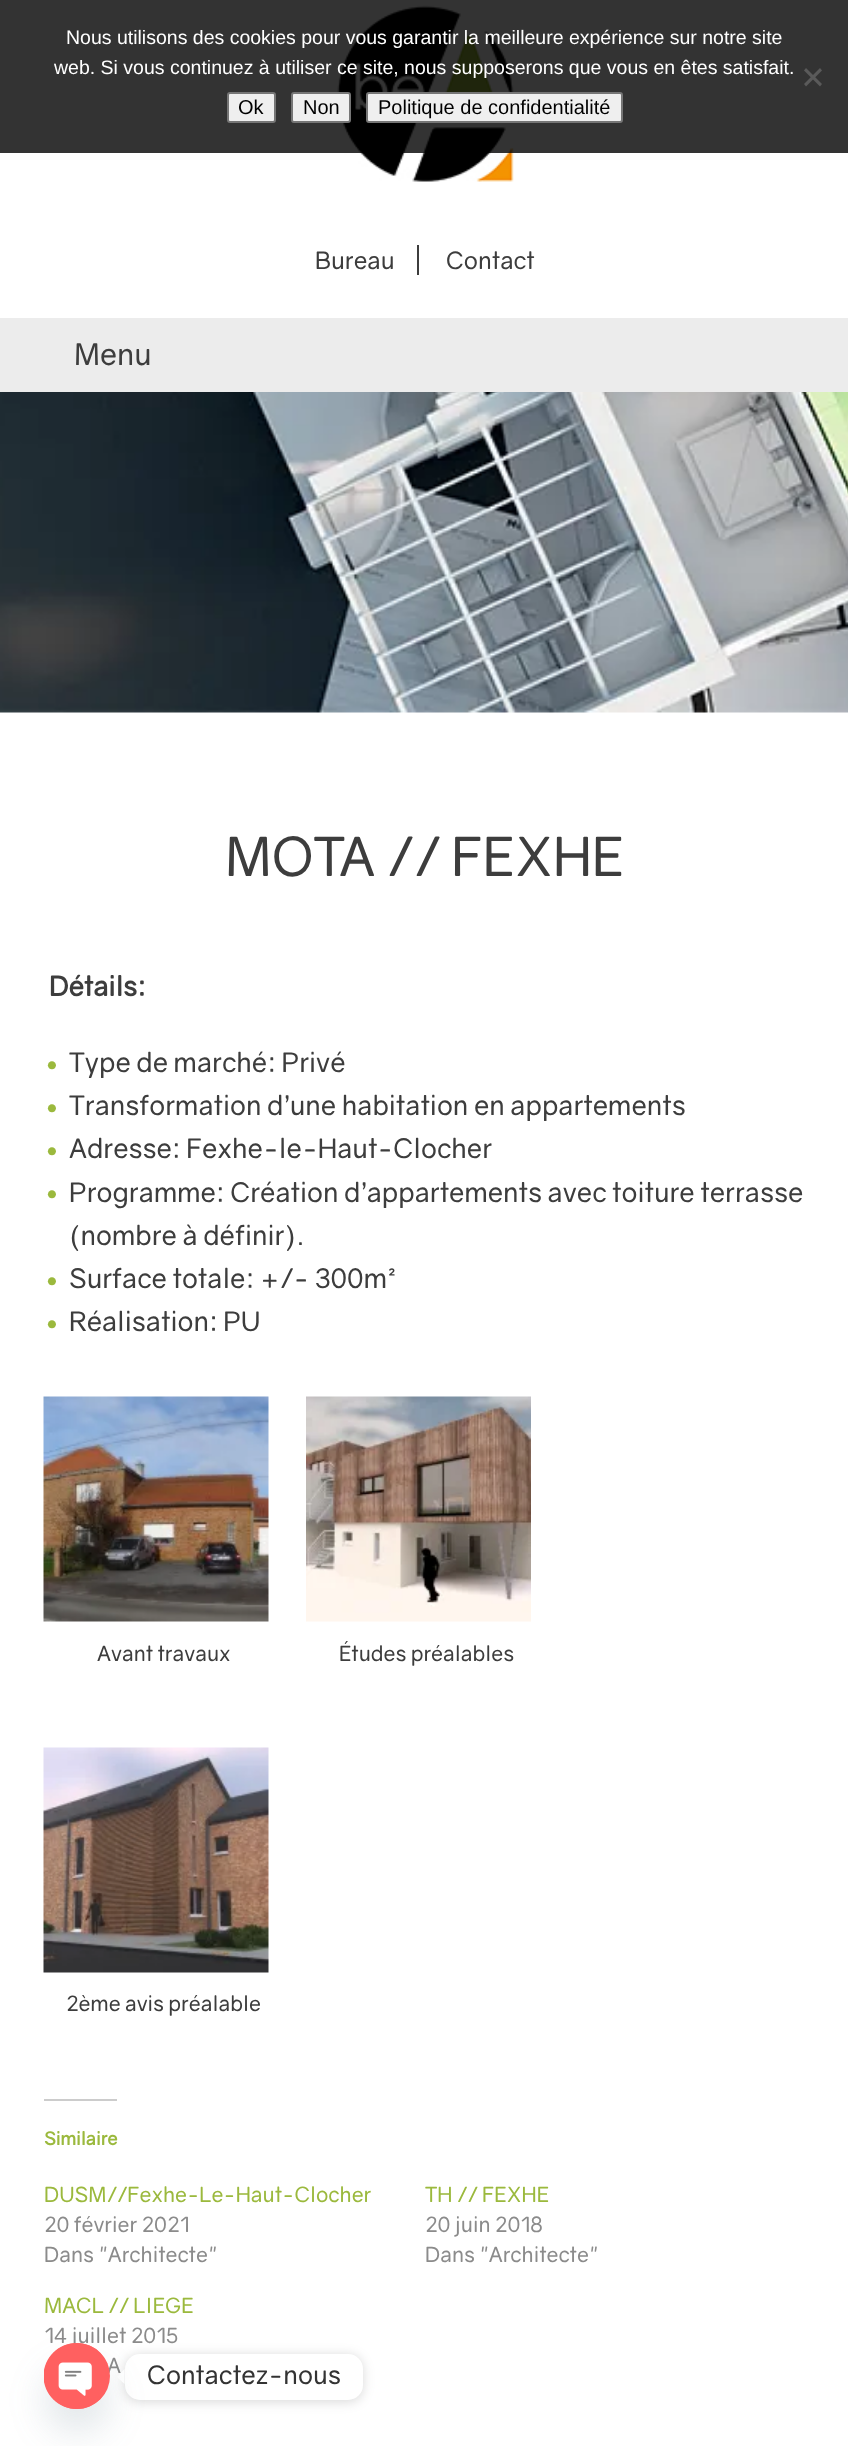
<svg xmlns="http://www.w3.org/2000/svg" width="848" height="2446">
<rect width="100%" height="100%" fill="#fff"/>
<image x="337" y="5" width="177" height="177" href="media/1.png"/>
<rect width="848" height="153" fill="#000000cc"/>
<text x="66" y="44" style="font-family:Liberation Sans;font-size:19.5px;fill:#fff">Nous utilisons des cookies pour vous garantir la meilleure expérience sur notre site</text>
<text x="54" y="74" style="font-family:Liberation Sans;font-size:19.5px;fill:#fff">web. Si vous continuez à utiliser ce site, nous supposerons que vous en êtes satisfait.</text>
<path d="M820 68l2 2.5l-16 16l-2-2.5z" fill="#5a5a5a"/>
<path d="M804 70.5l2-2.5l16 16l-2 2.5z" fill="#5a5a5a"/>
<rect x="228" y="93" width="47" height="29" rx="2" fill="#efefef" stroke="#767676" stroke-width="2"/>
<text x="238" y="114" style="font-family:Liberation Sans;font-size:20px;fill:#000">Ok</text>
<rect x="292" y="93" width="58" height="29" rx="2" fill="#efefef" stroke="#767676" stroke-width="2"/>
<text x="303" y="114" style="font-family:Liberation Sans;font-size:20px;fill:#000">Non</text>
<rect x="367" y="93" width="255" height="29" rx="2" fill="#efefef" stroke="#767676" stroke-width="2"/>
<text x="378" y="114" style="font-family:Liberation Sans;font-size:20px;fill:#000">Politique de confidentialité</text>
<text x="315" y="269" style="font-family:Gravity;font-size:24px;fill:#3d3d3d">Bureau</text>
<rect x="417" y="245" width="2" height="30" fill="#3d3d3d"/>
<text x="446" y="269" style="font-family:Gravity;font-size:24px;fill:#3d3d3d">Contact</text>
<rect y="318" width="848" height="74" fill="#ececec"/>
<text x="74" y="365" style="font-family:Gravity;font-size:30px;fill:#3d3d3d">Menu</text>
<image x="0" y="392" width="848" height="321" href="media/2.png"/>
<text x="225" y="876" style="font-family:Gravity;font-size:54px;fill:#3d3d3d">MOTA // FEXHE</text>
<text x="49" y="996" style="font-family:Gravity;font-size:27px;font-weight:bold;fill:#3d3d3d">Détails:</text>
<text x="44" y="1074" style="font-family:Gravity;font-size:30px;fill:#9bb93d">•</text>
<text x="69" y="1072" style="font-family:Gravity;font-size:27px;fill:#3d3d3d">Type de marché: Privé</text>
<text x="44" y="1117" style="font-family:Gravity;font-size:30px;fill:#9bb93d">•</text>
<text x="69" y="1115" style="font-family:Gravity;font-size:27px;fill:#3d3d3d">Transformation d’une habitation en appartements</text>
<text x="44" y="1160" style="font-family:Gravity;font-size:30px;fill:#9bb93d">•</text>
<text x="69" y="1158" style="font-family:Gravity;font-size:27px;fill:#3d3d3d">Adresse: Fexhe-le-Haut-Clocher</text>
<text x="44" y="1203" style="font-family:Gravity;font-size:30px;fill:#9bb93d">•</text>
<text x="69" y="1202" style="font-family:Gravity;font-size:27px;fill:#3d3d3d">Programme: Création d’appartements avec toiture terrasse</text>
<text x="69" y="1245" style="font-family:Gravity;font-size:27px;fill:#3d3d3d">(nombre à définir).</text>
<text x="44" y="1290" style="font-family:Gravity;font-size:30px;fill:#9bb93d">•</text>
<text x="69" y="1288" style="font-family:Gravity;font-size:27px;fill:#3d3d3d">Surface totale: +/- 300m²</text>
<text x="44" y="1333" style="font-family:Gravity;font-size:30px;fill:#9bb93d">•</text>
<text x="69" y="1331" style="font-family:Gravity;font-size:27px;fill:#3d3d3d">Réalisation: PU</text>
<image x="43" y="1396" width="226" height="226" href="media/3.png"/>
<text x="97" y="1661" style="font-family:Gravity;font-size:21px;fill:#3d3d3d">Avant travaux</text>
<image x="306" y="1396" width="225" height="226" href="media/4.png"/>
<text x="339" y="1661" style="font-family:Gravity;font-size:21px;fill:#3d3d3d">Études préalables</text>
<image x="43" y="1747" width="226" height="226" href="media/5.png"/>
<text x="66" y="2011" style="font-family:Gravity;font-size:21px;fill:#3d3d3d">2ème avis préalable</text>
<rect x="44" y="2099" width="73" height="2" fill="#ccc"/>
<text x="44" y="2145" style="font-family:Gravity;font-size:18px;font-weight:bold;fill:#9bb93d">Similaire</text>
<text x="44" y="2202" style="font-family:Gravity;font-size:21px;fill:#9bb93d">DUSM//Fexhe-Le-Haut-Clocher</text>
<text x="44" y="2232" style="font-family:Gravity;font-size:21px;fill:#8b8b8b">20 février 2021</text>
<text x="44" y="2262" style="font-family:Gravity;font-size:21px;fill:#8b8b8b">Dans "Architecte"</text>
<text x="425" y="2202" style="font-family:Gravity;font-size:21px;fill:#9bb93d">TH // FEXHE</text>
<text x="425" y="2232" style="font-family:Gravity;font-size:21px;fill:#8b8b8b">20 juin 2018</text>
<text x="425" y="2262" style="font-family:Gravity;font-size:21px;fill:#8b8b8b">Dans "Architecte"</text>
<text x="44" y="2313" style="font-family:Gravity;font-size:21px;fill:#9bb93d">MACL // LIEGE</text>
<text x="44" y="2343" style="font-family:Gravity;font-size:21px;fill:#8b8b8b">14 juillet 2015</text>
<text x="107" y="2373" style="font-family:Gravity;font-size:21px;fill:#8b8b8b">A</text>
<rect x="125" y="2355" width="238" height="47" rx="15" fill="#00000026" filter="blur(6px)"/>
<rect x="125" y="2354" width="238" height="46" rx="15" fill="#fff"/>
<path d="M124.5 2369v15l-7.5-7z" fill="#fff"/>
<rect x="44" y="2367" width="66" height="66" rx="33" fill="#49687e29" filter="blur(18px)"/>
<circle cx="77" cy="2376" r="33" fill="#ff6060"/>
<image x="44" y="2343" width="60" height="66" href="media/6.png"/>
<text x="147" y="2384" style="font-family:Gravity;font-size:25.5px;fill:#333">Contactez-nous</text>
</svg>
